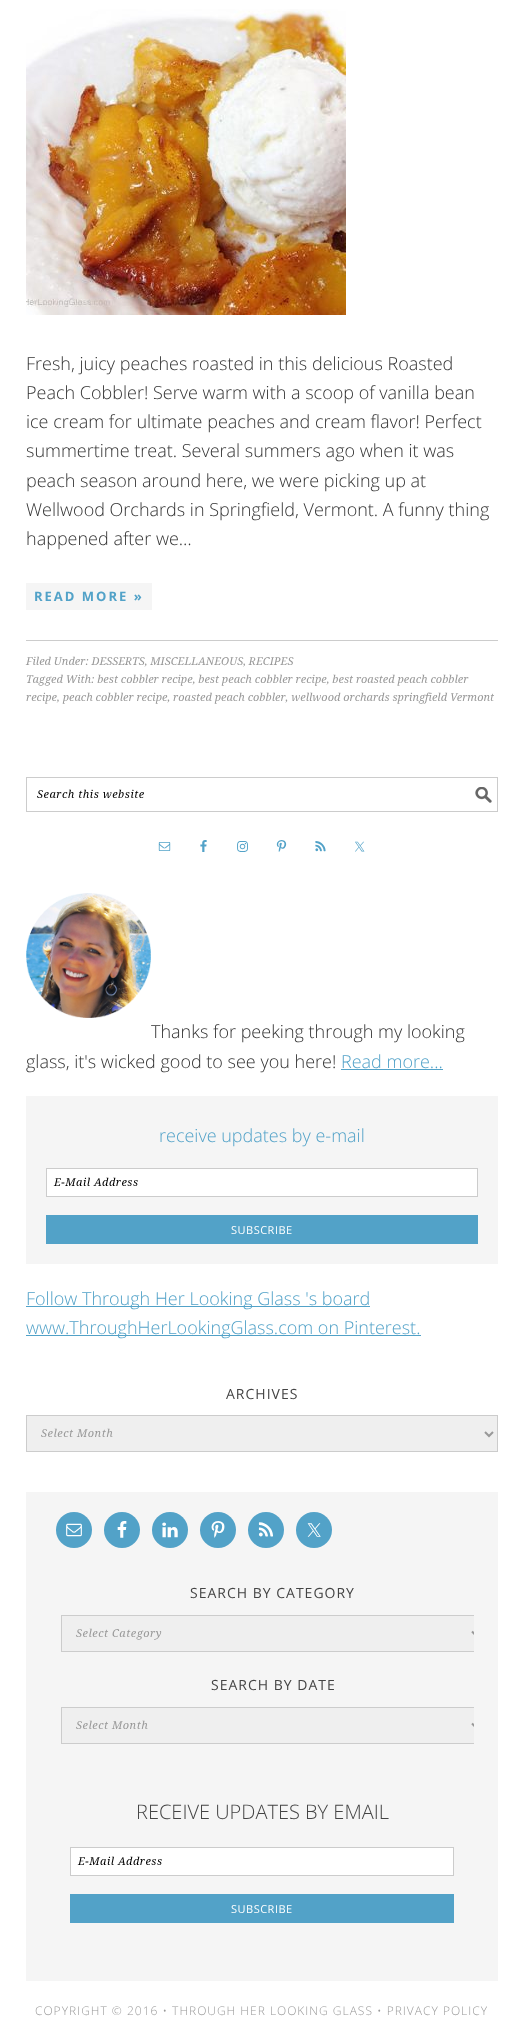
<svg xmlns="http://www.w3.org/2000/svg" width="524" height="2019">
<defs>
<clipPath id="clip1"><rect x="50" y="1512" width="424" height="453"/></clipPath>
</defs>
<rect width="100%" height="100%" fill="#fff"/>
<image x="26" y="9" width="320" height="306" href="media/1.png"/>
<text x="26" y="370" style="font-family:Open Sans;font-size:18px;font-weight:300;fill:#333">Fresh, juicy peaches roasted in this delicious Roasted</text>
<text x="26" y="399" style="font-family:Open Sans;font-size:18px;font-weight:300;fill:#333">Peach Cobbler! Serve warm with a scoop of vanilla bean</text>
<text x="26" y="428" style="font-family:Open Sans;font-size:18px;font-weight:300;fill:#333">ice cream for ultimate peaches and cream flavor! Perfect</text>
<text x="26" y="457" style="font-family:Open Sans;font-size:18px;font-weight:300;fill:#333">summertime treat. Several summers ago when it was</text>
<text x="26" y="487" style="font-family:Open Sans;font-size:18px;font-weight:300;fill:#333">peach season around here, we were picking up at</text>
<text x="26" y="516" style="font-family:Open Sans;font-size:18px;font-weight:300;fill:#333">Wellwood Orchards in Springfield, Vermont. A funny thing</text>
<text x="26" y="545" style="font-family:Open Sans;font-size:18px;font-weight:300;fill:#333">happened after we…</text>
<rect x="26" y="583" width="126" height="27" fill="#f5f5f5"/>
<text x="34" y="601" style="font-family:Open Sans;font-size:13px;font-weight:bold;letter-spacing:2px;fill:#52a2c8">READ MORE »</text>
<rect x="26" y="640" width="472" height="1" fill="#ccc"/>
<text x="26" y="665" style="font-family:Droid Serif;font-size:11px;font-style:italic;fill:#999">Filed Under: DESSERTS, MISCELLANEOUS, RECIPES</text>
<text x="26" y="683" style="font-family:Droid Serif;font-size:11px;font-style:italic;fill:#999">Tagged With: best cobbler recipe, best peach cobbler recipe, best roasted peach cobbler</text>
<text x="26" y="701" style="font-family:Droid Serif;font-size:11px;font-style:italic;fill:#999">recipe, peach cobbler recipe, roasted peach cobbler, wellwood orchards springfield Vermont</text>
<image x="475" y="787" width="17" height="16" href="media/2.png"/>
<rect x="26.5" y="777.5" width="471" height="34" fill="none" stroke="#ccc"/>
<text x="37" y="798" style="font-family:Droid Serif;font-size:11px;font-style:italic;letter-spacing:0.5px;fill:#000">Search this website</text>
<image x="158" y="842" width="13" height="9" href="media/3.png"/>
<image x="200" y="840" width="7" height="12" href="media/4.png"/>
<image x="237" y="841" width="11" height="11" href="media/5.png"/>
<image x="276" y="840" width="11" height="12" href="media/6.png"/>
<image x="315" y="841" width="11" height="11" href="media/7.png"/>
<image x="355" y="841" width="10" height="11" href="media/8.png"/>
<image x="26" y="893" width="125" height="125" href="media/9.png"/>
<text x="151" y="1038" style="font-family:Open Sans;font-size:18px;font-weight:300;fill:#333">Thanks for peeking through my looking</text>
<text x="26" y="1068" style="font-family:Open Sans;font-size:18px;font-weight:300;fill:#333">glass, it's wicked good to see you here!</text>
<text x="341" y="1068" style="font-family:Open Sans;font-size:18px;font-weight:300;fill:#52a2c8">Read more...</text>
<rect x="341" y="1069" width="102" height="1" fill="#52a2c8"/>
<rect x="26" y="1096" width="472" height="168" fill="#f5f5f5"/>
<text x="159" y="1142" style="font-family:Open Sans;font-size:18px;font-weight:300;fill:#52a2c8">receive updates by e-mail</text>
<rect x="46.5" y="1168.5" width="431" height="28" fill="#fff" stroke="#ccc"/>
<text x="54" y="1186" style="font-family:Droid Serif;font-size:11px;font-style:italic;letter-spacing:0.5px;fill:#000">E-Mail Address</text>
<rect x="46" y="1215" width="432" height="29" fill="#52a2c8"/>
<text x="231" y="1234" style="font-family:Open Sans;font-size:11px;letter-spacing:0.5px;fill:#fff">SUBSCRIBE</text>
<rect x="26" y="1306" width="344" height="1" fill="#52a2c8"/>
<text x="26" y="1305" style="font-family:Open Sans;font-size:18px;font-weight:300;fill:#52a2c8">Follow Through Her Looking Glass 's board</text>
<rect x="26" y="1335" width="395" height="1" fill="#52a2c8"/>
<text x="26" y="1334" style="font-family:Open Sans;font-size:18px;font-weight:300;fill:#52a2c8">www.ThroughHerLookingGlass.com on Pinterest.</text>
<text x="226" y="1399" style="font-family:Open Sans;font-size:14px;letter-spacing:1px;fill:#444">ARCHIVES</text>
<rect x="26.5" y="1415.5" width="471" height="36" fill="#efefef" stroke="#ccc"/>
<path d="M485 1432l4 4l4-4" fill="none" stroke="#999" stroke-width="2"/>
<text x="41" y="1437" style="font-family:Droid Serif;font-size:11px;font-style:italic;letter-spacing:0.5px;fill:#999">Select Month</text>
<rect x="26" y="1492" width="472" height="489" fill="#f5f5f5"/>
<circle cx="74" cy="1530" r="18" fill="#52a2c8"/>
<image x="66" y="1523" width="16" height="14" href="media/10.png"/>
<circle cx="122" cy="1530" r="18" fill="#52a2c8"/>
<image x="117" y="1521" width="10" height="17" href="media/11.png"/>
<circle cx="170" cy="1530" r="18" fill="#52a2c8"/>
<image x="162" y="1522" width="16" height="16" href="media/12.png"/>
<circle cx="218" cy="1530" r="18" fill="#52a2c8"/>
<image x="211" y="1521" width="14" height="17" href="media/13.png"/>
<circle cx="266" cy="1530" r="18" fill="#52a2c8"/>
<image x="258" y="1522" width="15" height="15" href="media/14.png"/>
<circle cx="314" cy="1530" r="18" fill="#52a2c8"/>
<image x="307" y="1523" width="14" height="14" href="media/15.png"/>
<text x="190" y="1598" style="font-family:Open Sans;font-size:14px;letter-spacing:1px;fill:#444">SEARCH BY CATEGORY</text>
<rect x="62" y="1616" width="412" height="35" fill="#efefef"/>
<g clip-path="url(#clip1)">
<rect x="61.5" y="1615.5" width="423" height="36" fill="none" stroke="#ccc"/>
<path d="M472 1631.5l4 4l4-4" fill="none" stroke="#999" stroke-width="2"/>
</g>
<text x="76" y="1637" style="font-family:Droid Serif;font-size:11px;font-style:italic;letter-spacing:0.5px;fill:#999">Select Category</text>
<text x="211" y="1690" style="font-family:Open Sans;font-size:14px;letter-spacing:1px;fill:#444">SEARCH BY DATE</text>
<rect x="62" y="1708" width="412" height="35" fill="#efefef"/>
<g clip-path="url(#clip1)">
<rect x="61.5" y="1707.5" width="423" height="36" fill="none" stroke="#ccc"/>
<path d="M472 1723.5l4 4l4-4" fill="none" stroke="#999" stroke-width="2"/>
</g>
<text x="76" y="1729" style="font-family:Droid Serif;font-size:11px;font-style:italic;letter-spacing:0.5px;fill:#999">Select Month</text>
<text x="136" y="1819" style="font-family:Open Sans;font-size:20px;font-weight:300;fill:#444">RECEIVE UPDATES BY EMAIL</text>
<rect x="70.5" y="1847.5" width="383" height="28" fill="#fff" stroke="#ccc"/>
<text x="78" y="1865" style="font-family:Droid Serif;font-size:11px;font-style:italic;letter-spacing:0.5px;fill:#000">E-Mail Address</text>
<rect x="70" y="1894" width="384" height="29" fill="#52a2c8"/>
<text x="231" y="1913" style="font-family:Open Sans;font-size:11px;letter-spacing:0.5px;fill:#fff">SUBSCRIBE</text>
<text x="35" y="2015" style="font-family:Open Sans;font-size:12px;font-weight:300;letter-spacing:1px;fill:#999">COPYRIGHT © 2016 • THROUGH HER LOOKING GLASS • PRIVACY POLICY</text>
</svg>
